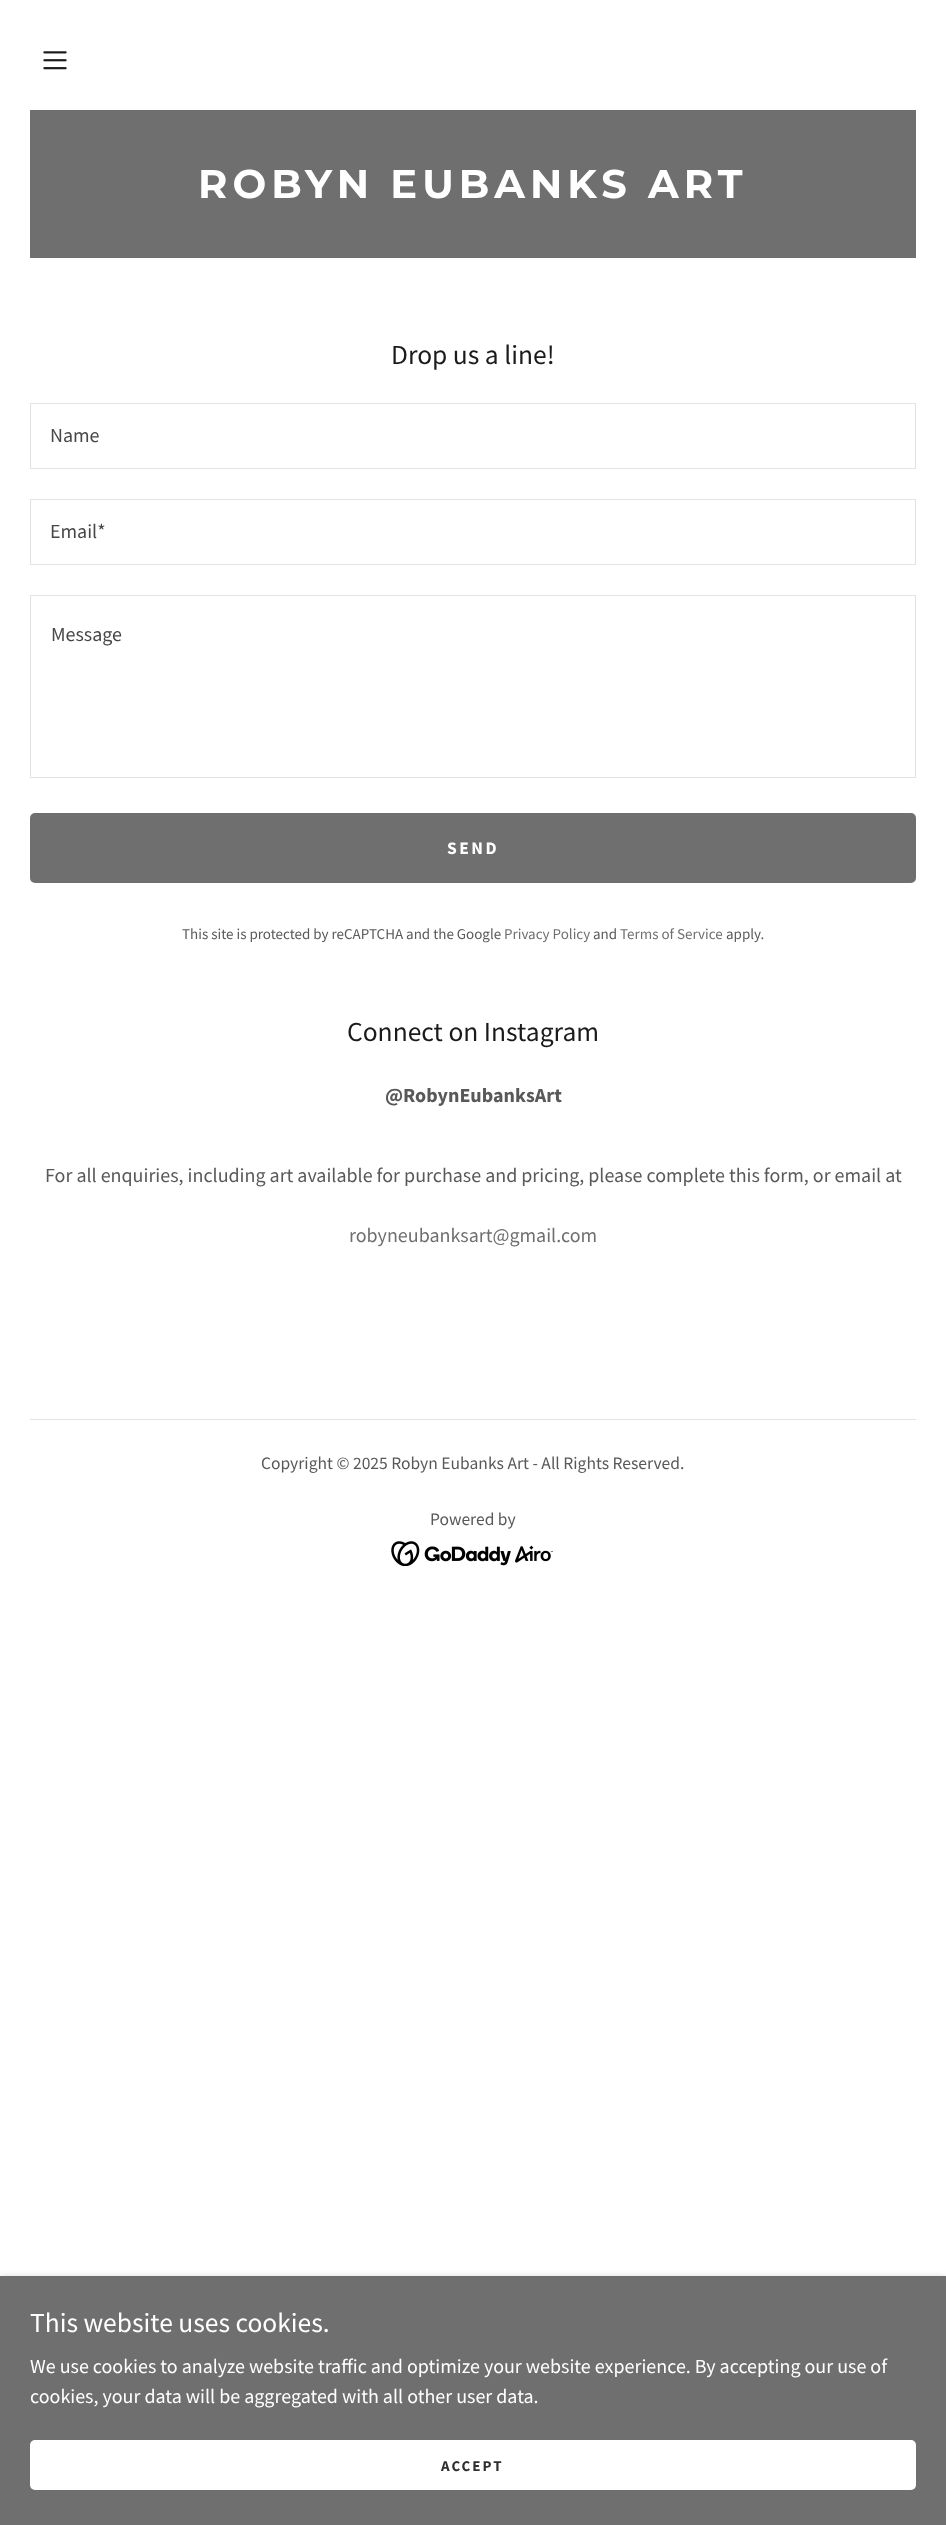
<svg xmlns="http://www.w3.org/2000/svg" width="946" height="2525">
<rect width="100%" height="100%" fill="#fff"/>
<image x="43" y="51" width="24" height="19" href="media/1.png"/>
<rect x="30" y="110" width="886" height="148" fill="#6f6f6f"/>
<text x="198" y="198" style="font-family:Montserrat;font-size:40px;font-weight:bold;letter-spacing:5px;fill:#fff">ROBYN EUBANKS ART</text>
<text x="391" y="364" style="font-family:Source Sans Pro;font-size:27.5px;fill:#1b1b1b">Drop us a line!</text>
<rect x="30.5" y="403.5" width="885" height="65" fill="none" stroke="#e2e2e2"/>
<text x="50" y="442" style="font-family:Source Sans Pro;font-size:20px;fill:#474747">Name</text>
<rect x="30.5" y="499.5" width="885" height="65" fill="none" stroke="#e2e2e2"/>
<text x="50" y="538" style="font-family:Source Sans Pro;font-size:20px;fill:#474747">Email*</text>
<rect x="30.5" y="595.5" width="885" height="182" fill="none" stroke="#e2e2e2"/>
<text x="51" y="641" style="font-family:Source Sans Pro;font-size:20px;fill:#474747">Message</text>
<rect x="30" y="813" width="886" height="70" rx="5" fill="#6f6f6f"/>
<text x="447" y="854" style="font-family:Source Sans Pro;font-size:17.5px;font-weight:bold;letter-spacing:2.5px;fill:#fff">SEND</text>
<text x="182" y="939" style="font-family:Source Sans Pro;font-size:15px;fill:#595959">This site is protected by reCAPTCHA and the Google</text>
<text x="504" y="939" style="font-family:Source Sans Pro;font-size:15px;fill:#6f6f6f">Privacy Policy</text>
<text x="593" y="939" style="font-family:Source Sans Pro;font-size:15px;fill:#595959">and</text>
<text x="620" y="939" style="font-family:Source Sans Pro;font-size:15px;fill:#6f6f6f">Terms of Service</text>
<text x="726" y="939" style="font-family:Source Sans Pro;font-size:15px;fill:#595959">apply.</text>
<text x="347" y="1041" style="font-family:Source Sans Pro;font-size:27.5px;fill:#1b1b1b">Connect on Instagram</text>
<text x="385" y="1102" style="font-family:Source Sans Pro;font-size:20px;font-weight:bold;fill:#595959">@RobynEubanksArt</text>
<text x="45" y="1182" style="font-family:Source Sans Pro;font-size:20px;fill:#595959">For all enquiries, including art available for purchase and pricing, please complete this form, or email at</text>
<text x="349" y="1242" style="font-family:Source Sans Pro;font-size:20px;fill:#6f6f6f">robyneubanksart@gmail.com</text>
<rect x="30" y="1419" width="886" height="1" fill="#e2e2e2"/>
<text x="261" y="1469" style="font-family:Source Sans Pro;font-size:17.5px;fill:#595959">Copyright © 2025 Robyn Eubanks Art - All Rights Reserved.</text>
<text x="430" y="1525" style="font-family:Source Sans Pro;font-size:17.5px;fill:#595959">Powered by</text>
<image x="391" y="1541" width="162" height="25" href="media/2.png"/>
<rect y="2279" width="946" height="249" fill="#0000004d" filter="blur(4px)"/>
<rect y="2276" width="946" height="249" fill="#6f6f6f"/>
<text x="30" y="2332" style="font-family:Source Sans Pro;font-size:27.5px;fill:#fff">This website uses cookies.</text>
<text x="30" y="2373" style="font-family:Source Sans Pro;font-size:20px;fill:#fff">We use cookies to analyze website traffic and optimize your website experience. By accepting our use of</text>
<text x="30" y="2403" style="font-family:Source Sans Pro;font-size:20px;fill:#fff">cookies, your data will be aggregated with all other user data.</text>
<rect x="30" y="2440" width="886" height="50" rx="5" fill="#fff"/>
<text x="441" y="2471" style="font-family:Source Sans Pro;font-size:15px;font-weight:bold;letter-spacing:2px;fill:#303030">ACCEPT</text>
</svg>
